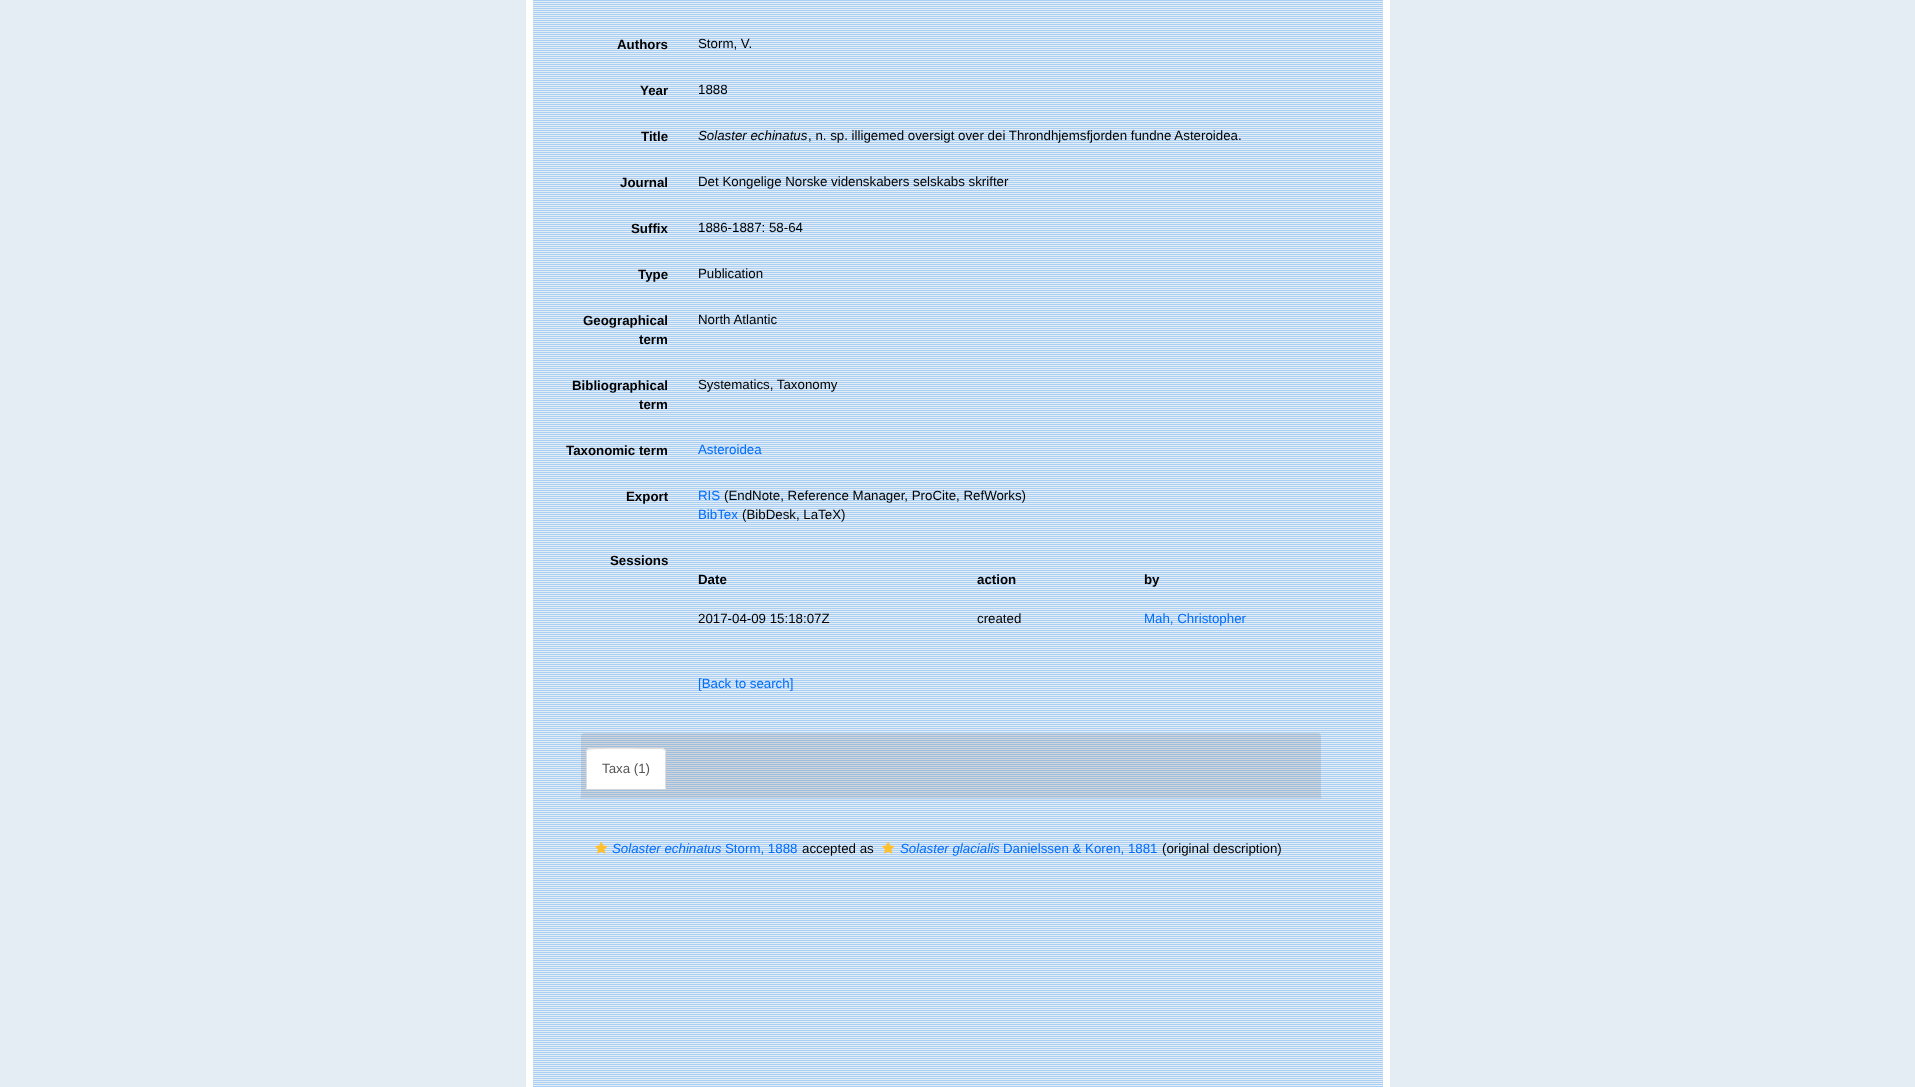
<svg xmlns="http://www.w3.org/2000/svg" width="1915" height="1087">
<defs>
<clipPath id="clip1"><path d="M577 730h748v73h-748zm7 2h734c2 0 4 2 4 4v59c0 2-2 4-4 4h-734c-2 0-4-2-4-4v-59c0-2 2-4 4-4z" clip-rule="evenodd"/></clipPath>
</defs>
<rect width="100%" height="100%" fill="#e5edf4"/>
<image x="533" y="0" width="850" height="1087" href="media/1.png"/>
<rect x="526" width="7" height="1087" fill="#fff"/>
<text x="617" y="49" style="font-family:Liberation Sans;font-size:13.3px;font-weight:bold;fill:#000">Authors</text>
<text x="698" y="48" style="font-family:Liberation Sans;font-size:13.3px;fill:#000">Storm, V.</text>
<text x="640" y="95" style="font-family:Liberation Sans;font-size:13.3px;font-weight:bold;fill:#000">Year</text>
<text x="698" y="94" style="font-family:Liberation Sans;font-size:13.3px;fill:#000">1888</text>
<text x="641" y="141" style="font-family:Liberation Sans;font-size:13.3px;font-weight:bold;fill:#000">Title</text>
<text x="698" y="140" style="font-family:Liberation Sans;font-size:13.3px;font-style:italic;fill:#000">Solaster echinatus</text>
<text x="808" y="140" style="font-family:Liberation Sans;font-size:13.3px;fill:#000">, n. sp. illigemed oversigt over dei Throndhjemsfjorden fundne Asteroidea.</text>
<text x="620" y="187" style="font-family:Liberation Sans;font-size:13.3px;font-weight:bold;fill:#000">Journal</text>
<text x="698" y="186" style="font-family:Liberation Sans;font-size:13.3px;fill:#000">Det Kongelige Norske videnskabers selskabs skrifter</text>
<text x="631" y="233" style="font-family:Liberation Sans;font-size:13.3px;font-weight:bold;fill:#000">Suffix</text>
<text x="698" y="232" style="font-family:Liberation Sans;font-size:13.3px;fill:#000">1886-1887: 58-64</text>
<text x="638" y="279" style="font-family:Liberation Sans;font-size:13.3px;font-weight:bold;fill:#000">Type</text>
<text x="698" y="278" style="font-family:Liberation Sans;font-size:13.3px;fill:#000">Publication</text>
<text x="583" y="325" style="font-family:Liberation Sans;font-size:13.3px;font-weight:bold;fill:#000">Geographical</text>
<text x="639" y="344" style="font-family:Liberation Sans;font-size:13.3px;font-weight:bold;fill:#000">term</text>
<text x="698" y="324" style="font-family:Liberation Sans;font-size:13.3px;fill:#000">North Atlantic</text>
<text x="572" y="390" style="font-family:Liberation Sans;font-size:13.3px;font-weight:bold;fill:#000">Bibliographical</text>
<text x="639" y="409" style="font-family:Liberation Sans;font-size:13.3px;font-weight:bold;fill:#000">term</text>
<text x="698" y="389" style="font-family:Liberation Sans;font-size:13.3px;fill:#000">Systematics, Taxonomy</text>
<text x="566" y="455" style="font-family:Liberation Sans;font-size:13.3px;font-weight:bold;fill:#000">Taxonomic term</text>
<text x="698" y="454" style="font-family:Liberation Sans;font-size:13.3px;fill:#026dfb">Asteroidea</text>
<text x="626" y="501" style="font-family:Liberation Sans;font-size:13.3px;font-weight:bold;fill:#000">Export</text>
<text x="698" y="500" style="font-family:Liberation Sans;font-size:13.3px;fill:#026dfb">RIS</text>
<text x="724" y="500" style="font-family:Liberation Sans;font-size:13.3px;fill:#000">(EndNote, Reference Manager, ProCite, RefWorks)</text>
<text x="698" y="519" style="font-family:Liberation Sans;font-size:13.3px;fill:#026dfb">BibTex</text>
<text x="742" y="519" style="font-family:Liberation Sans;font-size:13.3px;fill:#000">(BibDesk, LaTeX)</text>
<text x="610" y="565" style="font-family:Liberation Sans;font-size:13.3px;font-weight:bold;fill:#000">Sessions</text>
<text x="698" y="584" style="font-family:Liberation Sans;font-size:13.3px;font-weight:bold;fill:#000">Date</text>
<text x="977" y="584" style="font-family:Liberation Sans;font-size:13.3px;font-weight:bold;fill:#000">action</text>
<text x="1144" y="584" style="font-family:Liberation Sans;font-size:13.3px;font-weight:bold;fill:#000">by</text>
<text x="698" y="623" style="font-family:Liberation Sans;font-size:13.3px;fill:#000">2017-04-09 15:18:07Z</text>
<text x="977" y="623" style="font-family:Liberation Sans;font-size:13.3px;fill:#000">created</text>
<text x="1144" y="623" style="font-family:Liberation Sans;font-size:13.3px;fill:#026dfb">Mah, Christopher</text>
<text x="698" y="688" style="font-family:Liberation Sans;font-size:13.3px;fill:#026dfb">[Back to search]</text>
<g clip-path="url(#clip1)">
<rect x="580" y="733" width="742" height="67" rx="4" fill="#0000000d" filter="blur(0.5px)"/>
</g>
<path d="M584 733h734c1.5 0 3 1.5 3 3v62h-740v-62c0-1.5 1.5-3 3-3z" fill="#78787833"/>
<path d="M590 748h72c2 0 4 2 4 4v37h-80v-37c0-2 2-4 4-4z" fill="#fff"/>
<path d="M590 748l-3 1l1 1c2-2 55-1 62-1h12l2 1l1-1l-3-1z" fill="#ddd"/>
<path d="M666 789v-37c0-1-.5-2-1-3l-1 1c1 0 1 1 1 2v36z" fill="#ddd"/>
<path d="M586 789l1-1v-36c0-1 0-2 1-2l-1-1c-.5 1-1 2-1 3z" fill="#ddd"/>
<text x="602" y="773" style="font-family:Liberation Sans;font-size:13.3px;fill:#555">Taxa (1)</text>
<image x="595" y="841" width="13" height="13" href="media/2.png"/>
<text x="612" y="853" style="font-family:Liberation Sans;font-size:13.3px;font-style:italic;fill:#026dfb">Solaster echinatus</text>
<text x="725" y="853" style="font-family:Liberation Sans;font-size:13.3px;fill:#026dfb">Storm, 1888</text>
<text x="802" y="853" style="font-family:Liberation Sans;font-size:13.3px;fill:#000">accepted as</text>
<image x="882" y="841" width="13" height="13" href="media/2.png"/>
<text x="900" y="853" style="font-family:Liberation Sans;font-size:13.3px;font-style:italic;fill:#026dfb">Solaster glacialis</text>
<text x="1003" y="853" style="font-family:Liberation Sans;font-size:13.3px;fill:#026dfb">Danielssen &amp; Koren, 1881</text>
<text x="1162" y="853" style="font-family:Liberation Sans;font-size:13.3px;fill:#000">(original description)</text>
<rect x="1383" width="7" height="1087" fill="#fff"/>
</svg>
